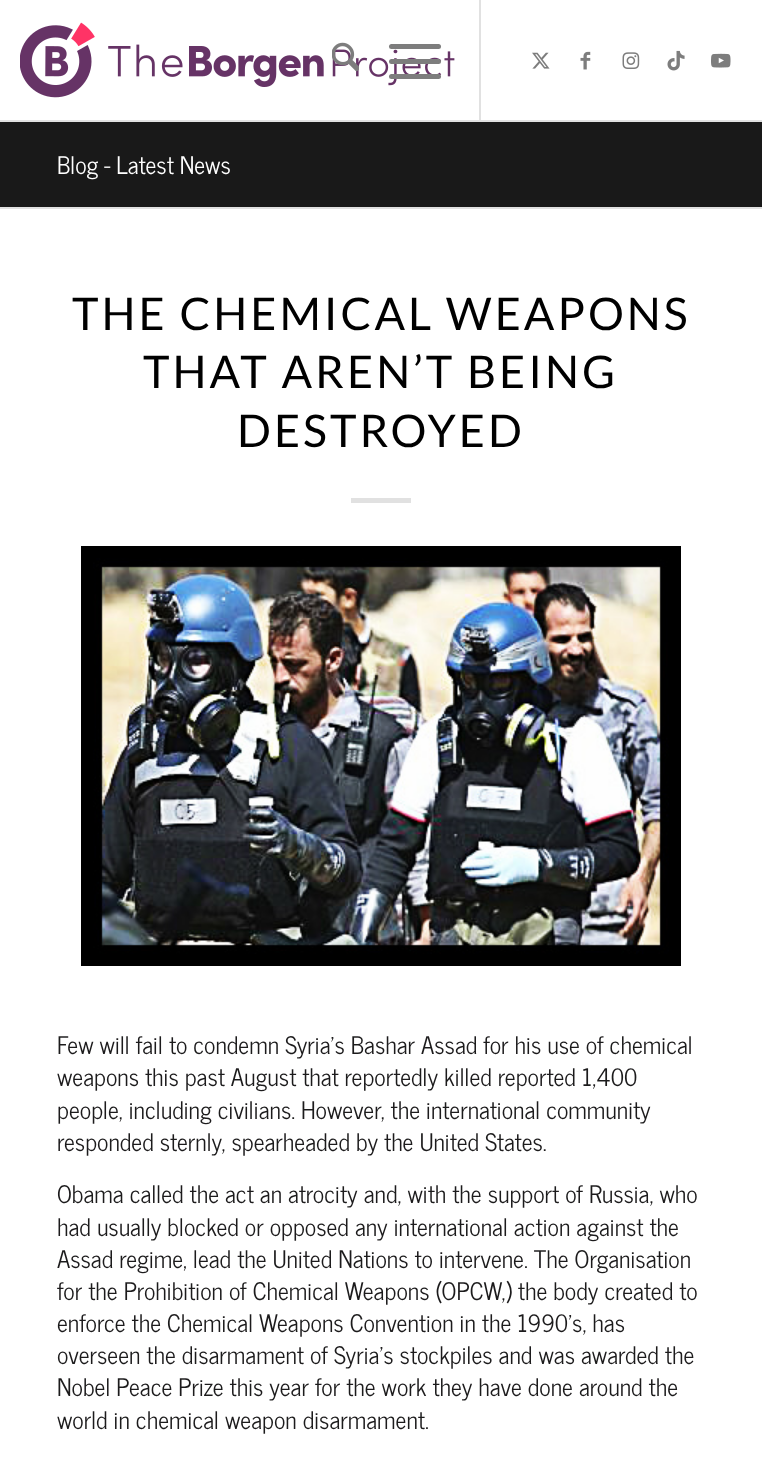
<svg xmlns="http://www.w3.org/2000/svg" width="762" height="1466">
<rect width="100%" height="100%" fill="#fff"/>
<rect y="120" width="762" height="2" fill="#e1e1e1"/>
<image x="20" y="22" width="435" height="76" href="media/1.png"/>
<rect x="479" width="2" height="120" fill="#e1e1e1"/>
<image x="332" y="42" width="27" height="30" href="media/2.png"/>
<rect x="389" y="59" width="52" height="5" rx="2.5" fill="#7d7d7d"/>
<rect x="389" y="44" width="52" height="5" rx="2.5" fill="#7d7d7d"/>
<rect x="389" y="74" width="52" height="5" rx="2.5" fill="#7d7d7d"/>
<image x="532" y="52" width="18" height="17" href="media/3.png"/>
<image x="580" y="51" width="11" height="19" href="media/4.png"/>
<image x="622" y="52" width="18" height="18" href="media/5.png"/>
<image x="667" y="50" width="18" height="21" href="media/6.png"/>
<image x="711" y="53" width="20" height="15" href="media/7.png"/>
<rect y="122" width="762" height="85" fill="#191919"/>
<text x="57" y="174" style="font-family:News Cycle;font-size:24px;fill:#fff">Blog - Latest News</text>
<rect y="207" width="762" height="2" fill="#e1e1e1"/>
<text x="72" y="330" style="font-family:Lato;font-size:45px;letter-spacing:3px;fill:#000">THE CHEMICAL WEAPONS</text>
<text x="143" y="388" style="font-family:Lato;font-size:45px;letter-spacing:3px;fill:#000">THAT AREN’T BEING</text>
<text x="237" y="447" style="font-family:Lato;font-size:45px;letter-spacing:3px;fill:#000">DESTROYED</text>
<rect x="351" y="498" width="60" height="5" fill="#e1e1e1"/>
<image x="81" y="546" width="600" height="420" href="media/8.png"/>
<text x="57" y="1054" style="font-family:News Cycle;font-size:24px;fill:#1c1b1c">Few will fail to condemn Syria’s Bashar Assad for his use of chemical</text>
<text x="57" y="1086" style="font-family:News Cycle;font-size:24px;fill:#1c1b1c">weapons this past August that reportedly killed reported 1,400</text>
<text x="57" y="1119" style="font-family:News Cycle;font-size:24px;fill:#1c1b1c">people, including civilians. However, the international community</text>
<text x="57" y="1151" style="font-family:News Cycle;font-size:24px;fill:#1c1b1c">responded sternly, spearheaded by the United States.</text>
<text x="57" y="1203" style="font-family:News Cycle;font-size:24px;fill:#1c1b1c">Obama called the act an atrocity and, with the support of Russia, who</text>
<text x="57" y="1236" style="font-family:News Cycle;font-size:24px;fill:#1c1b1c">had usually blocked or opposed any international action against the</text>
<text x="57" y="1268" style="font-family:News Cycle;font-size:24px;fill:#1c1b1c">Assad regime, lead the United Nations to intervene. The Organisation</text>
<text x="57" y="1300" style="font-family:News Cycle;font-size:24px;fill:#1c1b1c">for the Prohibition of Chemical Weapons (OPCW,) the body created to</text>
<text x="57" y="1332" style="font-family:News Cycle;font-size:24px;fill:#1c1b1c">enforce the Chemical Weapons Convention in the 1990’s, has</text>
<text x="57" y="1364" style="font-family:News Cycle;font-size:24px;fill:#1c1b1c">overseen the disarmament of Syria’s stockpiles and was awarded the</text>
<text x="57" y="1396" style="font-family:News Cycle;font-size:24px;fill:#1c1b1c">Nobel Peace Prize this year for the work they have done around the</text>
<text x="57" y="1429" style="font-family:News Cycle;font-size:24px;fill:#1c1b1c">world in chemical weapon disarmament.</text>
</svg>
